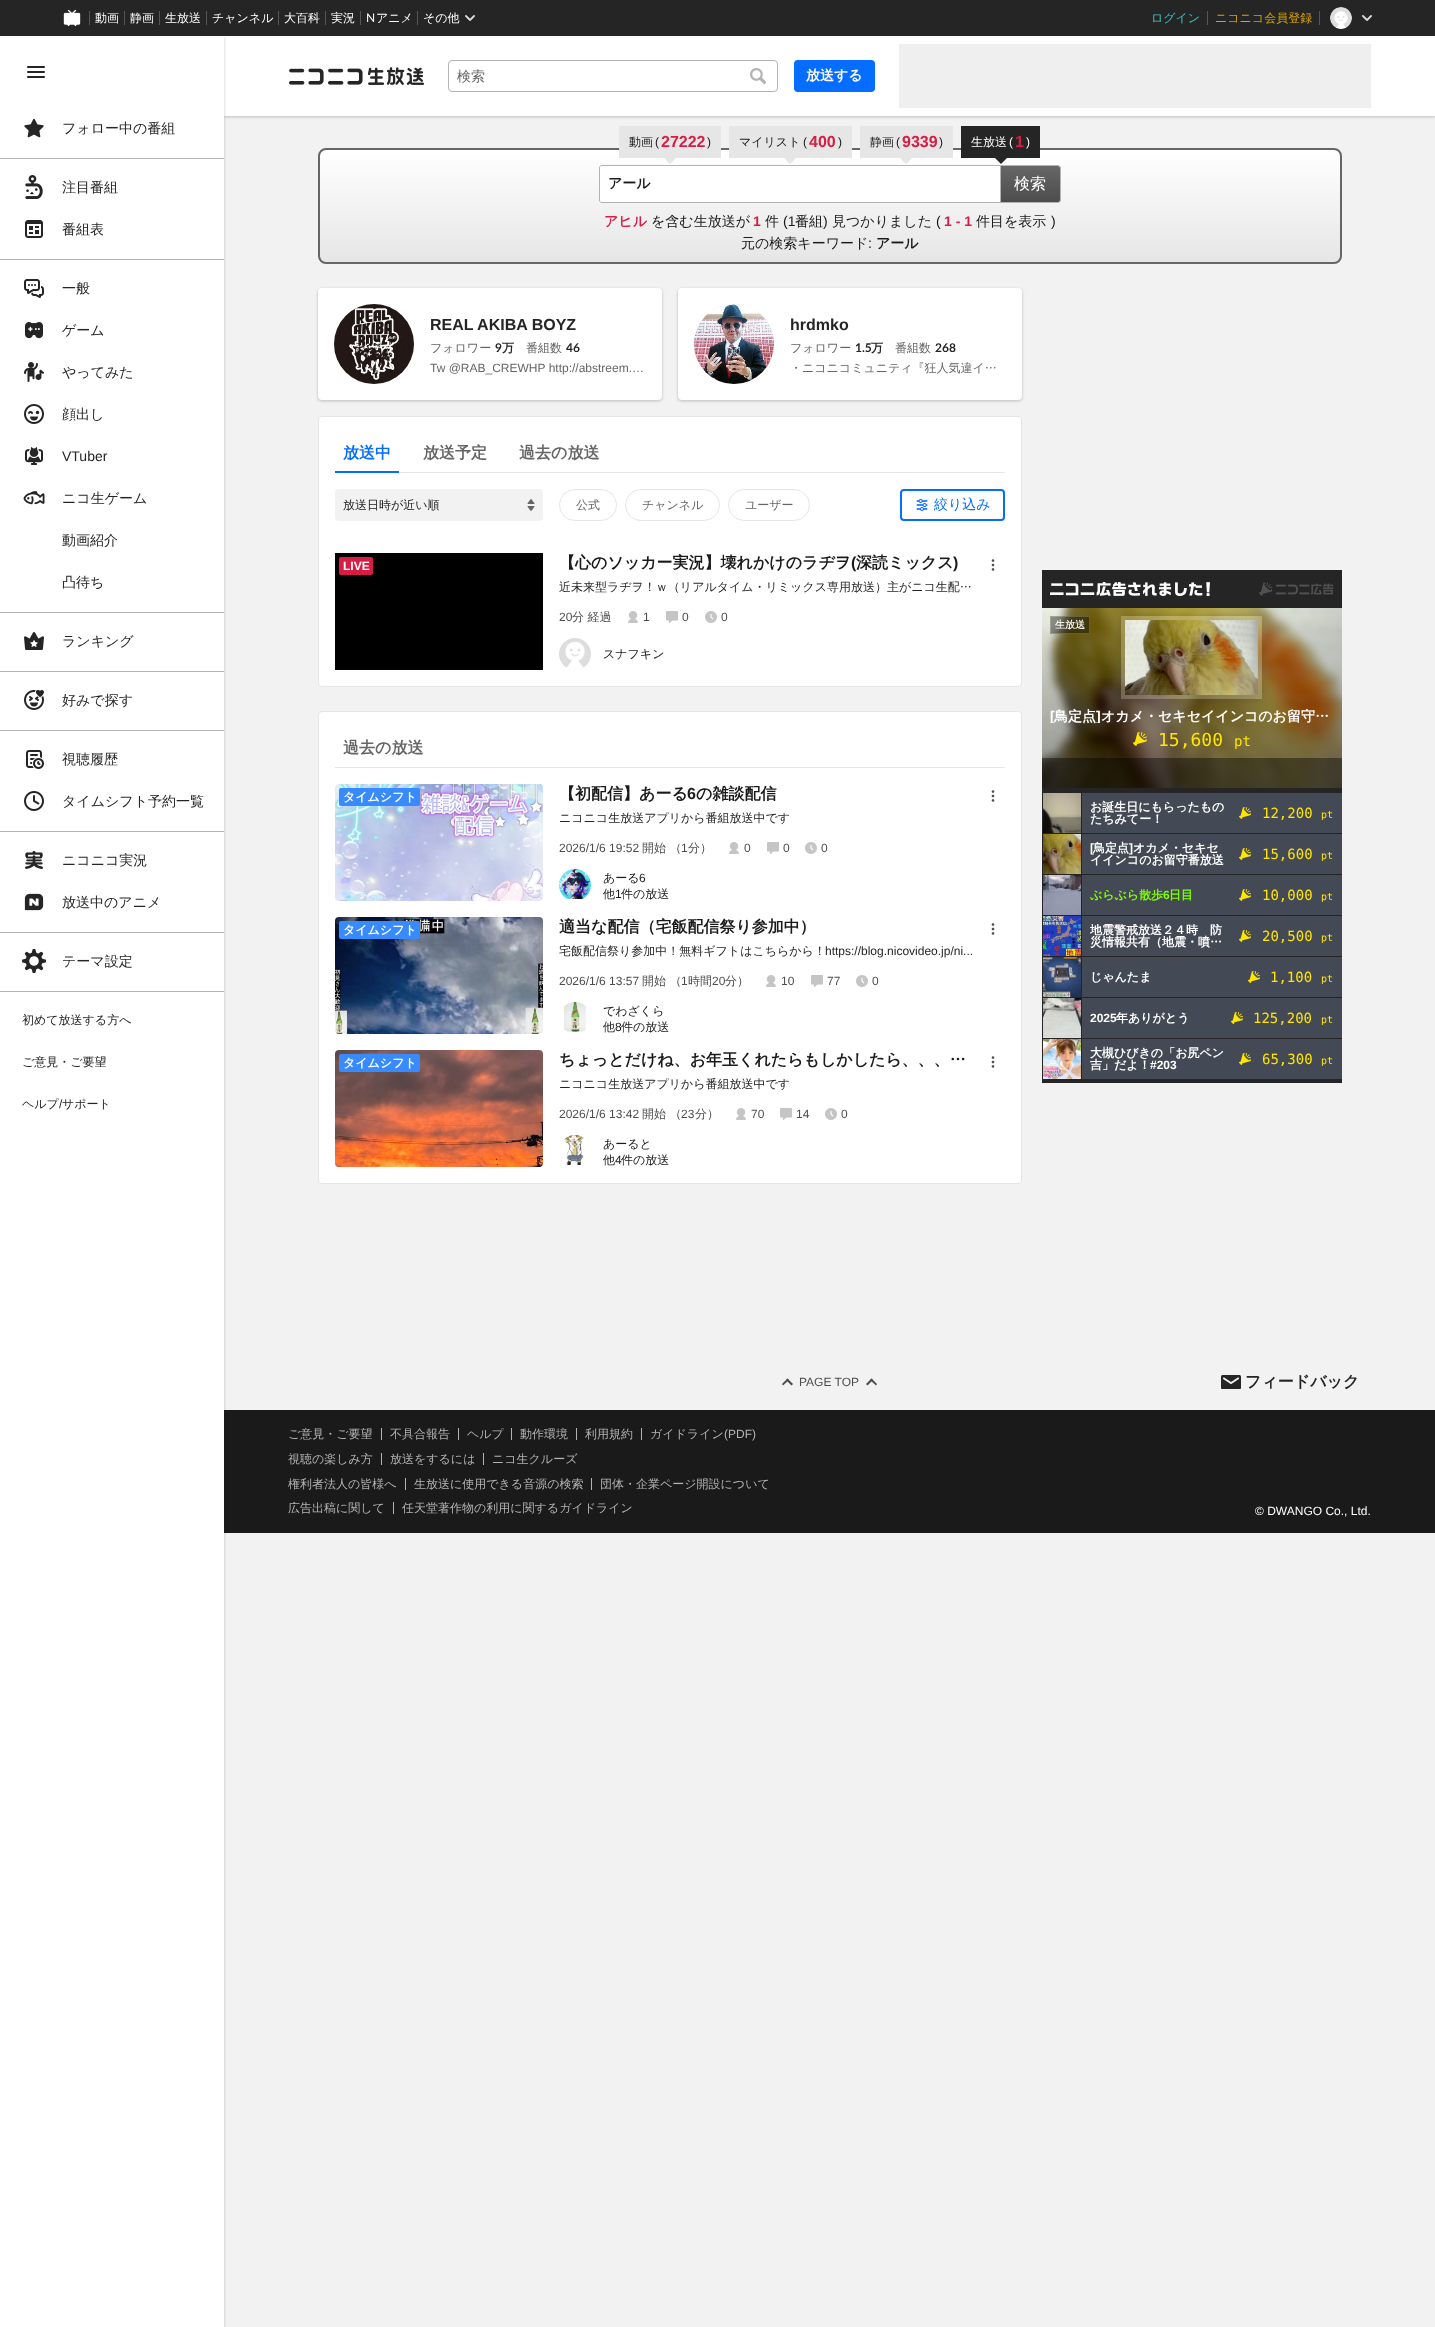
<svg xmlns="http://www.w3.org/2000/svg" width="1435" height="2327">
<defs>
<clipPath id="clip1"><rect x="318" y="148" width="1024" height="116" rx="8"/></clipPath>
<linearGradient id="g1" gradientUnits="userSpaceOnUse" x1="830" y1="150" x2="830" y2="262"><stop offset="0" stop-color="#fff"/><stop offset="1" stop-color="#e6e6e6"/></linearGradient>
<linearGradient id="g2" gradientUnits="userSpaceOnUse" x1="1030" y1="166" x2="1030" y2="202"><stop offset="0" stop-color="#666"/><stop offset="1" stop-color="#4d4d4d"/></linearGradient>
<clipPath id="clip2"><path d="M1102 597h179v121h-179zm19 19h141v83h-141z" clip-rule="evenodd"/></clipPath>
<clipPath id="clip3"><rect x="1050" y="709" width="284" height="14"/></clipPath>
<clipPath id="clip4"><rect x="1090" y="924" width="141" height="24"/></clipPath>
</defs>
<rect width="100%" height="100%" fill="#f2f2f2"/>
<rect x="224" y="37" width="1211" height="80" fill="#1a1a1a40" filter="blur(1.5px)"/>
<rect x="224" y="36" width="1211" height="80" fill="#fff"/>
<rect x="224" y="1410" width="1211" height="123" fill="#1a1a1a"/>
<rect y="37" width="224" height="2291" fill="#1a1a1a40" filter="blur(1.5px)"/>
<rect width="1435" height="36" fill="#252525"/>
<image x="63" y="9" width="18" height="18" href="media/1.png"/>
<rect x="89" y="11" width="1" height="14" fill="#555"/>
<text x="95" y="22" style="font-family:WenQuanYi Zen Hei;font-size:12px;font-weight:500;fill:#fff">動画</text>
<rect x="124" y="11" width="1" height="14" fill="#555"/>
<text x="130" y="22" style="font-family:WenQuanYi Zen Hei;font-size:12px;font-weight:500;fill:#fff">静画</text>
<rect x="159" y="11" width="1" height="14" fill="#555"/>
<text x="165" y="22" style="font-family:WenQuanYi Zen Hei;font-size:12px;font-weight:500;fill:#fff">生放送</text>
<rect x="206" y="11" width="1" height="14" fill="#555"/>
<text x="212" y="22" style="font-family:WenQuanYi Zen Hei;font-size:12px;font-weight:500;fill:#fff">チャンネル</text>
<rect x="278" y="11" width="1" height="14" fill="#555"/>
<text x="284" y="22" style="font-family:WenQuanYi Zen Hei;font-size:12px;font-weight:500;fill:#fff">大百科</text>
<rect x="325" y="11" width="1" height="14" fill="#555"/>
<text x="331" y="22" style="font-family:WenQuanYi Zen Hei;font-size:12px;font-weight:500;fill:#fff">実況</text>
<rect x="360" y="11" width="1" height="14" fill="#555"/>
<text x="366" y="22" style="font-family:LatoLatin;font-size:12px;fill:#fff">N</text>
<text x="376" y="22" style="font-family:WenQuanYi Zen Hei;font-size:12px;font-weight:500;fill:#fff">アニメ</text>
<rect x="417" y="11" width="1" height="14" fill="#555"/>
<text x="423" y="22" style="font-family:WenQuanYi Zen Hei;font-size:12px;font-weight:500;fill:#fff">その他</text>
<image x="465" y="15" width="10" height="6" href="media/2.png"/>
<text x="1151" y="22" style="font-family:WenQuanYi Zen Hei;font-size:12px;font-weight:500;fill:#39c4c1">ログイン</text>
<rect x="1207" y="11" width="1" height="14" fill="#555"/>
<text x="1215" y="22" style="font-family:WenQuanYi Zen Hei;font-size:12px;font-weight:500;fill:#d9a300">ニコニコ会員登録</text>
<rect x="1319" y="11" width="1" height="14" fill="#555"/>
<image x="1330" y="7" width="22" height="22" href="media/3.png"/>
<image x="1362" y="15" width="10" height="6" href="media/2.png"/>
<rect y="36" width="224" height="2291" fill="#fff"/>
<image x="27" y="66" width="18" height="12" href="media/4.png"/>
<image x="24" y="118" width="20" height="20" href="media/5.png"/>
<text x="62" y="133" style="font-family:WenQuanYi Zen Hei;font-size:14px;font-weight:500;fill:#252525">フォロー中の番組</text>
<rect y="158" width="224" height="1" fill="#b3b3b3"/>
<image x="25" y="175" width="18" height="24" href="media/6.png"/>
<text x="62" y="192" style="font-family:WenQuanYi Zen Hei;font-size:14px;font-weight:500;fill:#252525">注目番組</text>
<image x="25" y="220" width="18" height="18" href="media/7.png"/>
<text x="62" y="234" style="font-family:WenQuanYi Zen Hei;font-size:14px;font-weight:500;fill:#252525">番組表</text>
<rect y="259" width="224" height="1" fill="#b3b3b3"/>
<image x="24" y="279" width="20" height="19" href="media/8.png"/>
<text x="62" y="293" style="font-family:WenQuanYi Zen Hei;font-size:14px;font-weight:500;fill:#252525">一般</text>
<image x="25" y="322" width="18" height="17" href="media/9.png"/>
<text x="62" y="335" style="font-family:WenQuanYi Zen Hei;font-size:14px;font-weight:500;fill:#252525">ゲーム</text>
<image x="24" y="362" width="20" height="20" href="media/10.png"/>
<text x="62" y="377" style="font-family:WenQuanYi Zen Hei;font-size:14px;font-weight:500;fill:#252525">やってみた</text>
<image x="24" y="404" width="20" height="20" href="media/11.png"/>
<text x="62" y="419" style="font-family:WenQuanYi Zen Hei;font-size:14px;font-weight:500;fill:#252525">顔出し</text>
<image x="25" y="447" width="18" height="18" href="media/12.png"/>
<text x="62" y="461" style="font-family:Liberation Sans;font-size:14px;fill:#252525">VTuber</text>
<image x="23" y="491" width="22" height="14" href="media/13.png"/>
<text x="62" y="503" style="font-family:WenQuanYi Zen Hei;font-size:14px;font-weight:500;fill:#252525">ニコ生ゲーム</text>
<text x="62" y="545" style="font-family:WenQuanYi Zen Hei;font-size:14px;font-weight:500;fill:#252525">動画紹介</text>
<text x="62" y="587" style="font-family:WenQuanYi Zen Hei;font-size:14px;font-weight:500;fill:#252525">凸待ち</text>
<rect y="612" width="224" height="1" fill="#b3b3b3"/>
<image x="24" y="632" width="20" height="18" href="media/14.png"/>
<text x="62" y="646" style="font-family:WenQuanYi Zen Hei;font-size:14px;font-weight:500;fill:#252525">ランキング</text>
<rect y="671" width="224" height="1" fill="#b3b3b3"/>
<image x="24" y="690" width="20" height="20" href="media/15.png"/>
<text x="62" y="705" style="font-family:WenQuanYi Zen Hei;font-size:14px;font-weight:500;fill:#252525">好みで探す</text>
<rect y="730" width="224" height="1" fill="#b3b3b3"/>
<image x="26" y="750" width="18" height="19" href="media/16.png"/>
<text x="62" y="764" style="font-family:WenQuanYi Zen Hei;font-size:14px;font-weight:500;fill:#252525">視聴履歴</text>
<image x="24" y="791" width="20" height="20" href="media/17.png"/>
<text x="62" y="806" style="font-family:WenQuanYi Zen Hei;font-size:14px;font-weight:500;fill:#252525">タイムシフト予約一覧</text>
<rect y="831" width="224" height="1" fill="#b3b3b3"/>
<image x="25" y="851" width="18" height="18" href="media/18.png"/>
<text x="62" y="865" style="font-family:WenQuanYi Zen Hei;font-size:14px;font-weight:500;fill:#252525">ニコニコ実況</text>
<image x="24" y="893" width="20" height="18" href="media/19.png"/>
<text x="62" y="907" style="font-family:WenQuanYi Zen Hei;font-size:14px;font-weight:500;fill:#252525">放送中のアニメ</text>
<rect y="932" width="224" height="1" fill="#b3b3b3"/>
<image x="22" y="949" width="24" height="24" href="media/20.png"/>
<text x="62" y="966" style="font-family:WenQuanYi Zen Hei;font-size:14px;font-weight:500;fill:#252525">テーマ設定</text>
<rect y="991" width="224" height="1" fill="#b3b3b3"/>
<text x="22" y="1024" style="font-family:WenQuanYi Zen Hei;font-size:12px;font-weight:500;fill:#252525">初めて放送する方へ</text>
<text x="22" y="1066" style="font-family:WenQuanYi Zen Hei;font-size:12px;font-weight:500;fill:#252525">ご意見・ご要望</text>
<text x="22" y="1108" style="font-family:WenQuanYi Zen Hei;font-size:12px;font-weight:500;fill:#252525">ヘルプ</text>
<text x="59" y="1108" style="font-family:Liberation Sans;font-size:12px;fill:#252525">/</text>
<text x="62" y="1108" style="font-family:WenQuanYi Zen Hei;font-size:12px;font-weight:500;fill:#252525">サポート</text>
<image x="289" y="67" width="135" height="18" href="media/21.png"/>
<rect x="448.5" y="60.5" width="329" height="31" rx="3.5" fill="none" stroke="#b3b3b3"/>
<text x="457" y="81" style="font-family:WenQuanYi Zen Hei;font-size:14px;font-weight:500;fill:#666">検索</text>
<image x="750" y="68" width="16" height="16" href="media/22.png"/>
<rect x="794" y="60" width="81" height="32" rx="4" fill="#056dff"/>
<text x="806" y="80" style="font-family:WenQuanYi Zen Hei;font-size:14px;font-weight:bold;fill:#fff">放送する</text>
<rect x="899" y="44" width="472" height="64" fill="#efefef"/>
<g clip-path="url(#clip1)">
<rect x="318" y="150" width="1024" height="112" fill="url(#g1)"/>
</g>
<rect x="319" y="149" width="1022" height="114" rx="7" fill="none" stroke="#666" stroke-width="2"/>
<rect x="619" y="126" width="102" height="32" fill="#e6e6e6"/>
<text x="629" y="146" style="font-family:WenQuanYi Zen Hei;font-size:12px;font-weight:500;fill:#1a1a1a">動画</text>
<text x="655" y="146" style="font-family:Liberation Sans;font-size:12px;fill:#1a1a1a">(</text>
<text x="661" y="147" style="font-family:Liberation Sans;font-size:16px;font-weight:bold;fill:#d71d43">27222</text>
<text x="707" y="146" style="font-family:Liberation Sans;font-size:12px;fill:#1a1a1a">)</text>
<path d="M664 158h12l-6 6z" fill="#e6e6e6"/>
<rect x="729" y="126" width="123" height="32" fill="#e6e6e6"/>
<text x="739" y="146" style="font-family:WenQuanYi Zen Hei;font-size:12px;font-weight:500;fill:#1a1a1a">マイリスト</text>
<text x="803" y="146" style="font-family:Liberation Sans;font-size:12px;fill:#1a1a1a">(</text>
<text x="809" y="147" style="font-family:Liberation Sans;font-size:16px;font-weight:bold;fill:#d71d43">400</text>
<text x="838" y="146" style="font-family:Liberation Sans;font-size:12px;fill:#1a1a1a">)</text>
<path d="M784 158h12l-6 6z" fill="#e6e6e6"/>
<rect x="860" y="126" width="93" height="32" fill="#e6e6e6"/>
<text x="870" y="146" style="font-family:WenQuanYi Zen Hei;font-size:12px;font-weight:500;fill:#1a1a1a">静画</text>
<text x="896" y="146" style="font-family:Liberation Sans;font-size:12px;fill:#1a1a1a">(</text>
<text x="902" y="147" style="font-family:Liberation Sans;font-size:16px;font-weight:bold;fill:#d71d43">9339</text>
<text x="939" y="146" style="font-family:Liberation Sans;font-size:12px;fill:#1a1a1a">)</text>
<path d="M900 158h12l-6 6z" fill="#e6e6e6"/>
<rect x="961" y="126" width="79" height="32" fill="#252525"/>
<text x="971" y="146" style="font-family:WenQuanYi Zen Hei;font-size:12px;font-weight:500;fill:#fff">生放送</text>
<text x="1009" y="146" style="font-family:Liberation Sans;font-size:12px;fill:#fff">(</text>
<text x="1015" y="147" style="font-family:Liberation Sans;font-size:16px;font-weight:bold;fill:#d71d43">1</text>
<text x="1026" y="146" style="font-family:Liberation Sans;font-size:12px;fill:#fff">)</text>
<path d="M995 158h12l-6 6z" fill="#252525"/>
<path d="M999.5 165.5h58.5c1.5 0 2.5 1 2.5 2.5v32c0 1.5-1 2.5-2.5 2.5h-58.5z" fill="none" stroke="#b3b3b3"/>
<path d="M1000 166h58c1 0 2 1 2 2v32c0 1-1 2-2 2h-58z" fill="url(#g2)"/>
<path d="M602 165.5h398.5v37h-398.5c-1.5 0-2.5-1-2.5-2.5v-32c0-1.5 1-2.5 2.5-2.5z" fill="none" stroke="#b3b3b3"/>
<path d="M602 166h398v36h-398c-1 0-2-1-2-2v-32c0-1 1-2 2-2z" fill="#fff"/>
<text x="608" y="188" style="font-family:WenQuanYi Zen Hei;font-size:14px;font-weight:bold;fill:#1a1a1a">アール</text>
<text x="1014" y="189" style="font-family:WenQuanYi Zen Hei;font-size:16px;font-weight:500;fill:#fff">検索</text>
<text x="604" y="226" style="font-family:WenQuanYi Zen Hei;font-size:14px;font-weight:bold;fill:#d71d43">アヒル</text>
<text x="651" y="226" style="font-family:WenQuanYi Zen Hei;font-size:14px;font-weight:500;fill:#1a1a1a">を含む生放送が</text>
<text x="753" y="226" style="font-family:Liberation Sans;font-size:14px;font-weight:bold;fill:#d71d43">1</text>
<text x="765" y="226" style="font-family:WenQuanYi Zen Hei;font-size:14px;font-weight:500;fill:#1a1a1a">件</text>
<text x="783" y="226" style="font-family:Liberation Sans;font-size:14px;fill:#1a1a1a">(1</text>
<text x="795" y="226" style="font-family:WenQuanYi Zen Hei;font-size:14px;font-weight:500;fill:#1a1a1a">番組</text>
<text x="823" y="226" style="font-family:Liberation Sans;font-size:14px;fill:#1a1a1a">)</text>
<text x="832" y="226" style="font-family:WenQuanYi Zen Hei;font-size:14px;font-weight:500;fill:#1a1a1a">見つかりました</text>
<text x="936" y="226" style="font-family:Liberation Sans;font-size:14px;fill:#1a1a1a">(</text>
<text x="944" y="226" style="font-family:Liberation Sans;font-size:14px;font-weight:bold;fill:#d71d43">1 - 1</text>
<text x="976" y="226" style="font-family:WenQuanYi Zen Hei;font-size:14px;font-weight:500;fill:#1a1a1a">件目を表示</text>
<text x="1051" y="226" style="font-family:Liberation Sans;font-size:14px;fill:#1a1a1a">)</text>
<text x="741" y="248" style="font-family:WenQuanYi Zen Hei;font-size:14px;font-weight:500;fill:#1a1a1a">元の検索キーワード</text>
<text x="868" y="248" style="font-family:Liberation Sans;font-size:14px;fill:#1a1a1a">:</text>
<text x="876" y="248" style="font-family:WenQuanYi Zen Hei;font-size:14px;font-weight:bold;fill:#1a1a1a">アール</text>
<rect x="318" y="289" width="344" height="112" rx="4" fill="#1a1a1a40" filter="blur(1.5px)"/>
<rect x="318" y="288" width="344" height="112" rx="4" fill="#fff"/>
<circle cx="374" cy="344" r="40" fill="#e6e6e6"/>
<image x="334" y="304" width="80" height="80" href="media/23.png"/>
<text x="430" y="330" style="font-family:Liberation Sans;font-size:16px;font-weight:bold;fill:#252525">REAL AKIBA BOYZ</text>
<text x="430" y="352" style="font-family:WenQuanYi Zen Hei;font-size:12px;font-weight:500;fill:#666">フォロワー</text>
<text x="495" y="352" style="font-family:LatoLatin;font-size:12px;font-weight:bold;fill:#252525">9</text>
<text x="502" y="352" style="font-family:WenQuanYi Zen Hei;font-size:12px;font-weight:bold;fill:#252525">万</text>
<text x="526" y="352" style="font-family:WenQuanYi Zen Hei;font-size:12px;font-weight:500;fill:#666">番組数</text>
<text x="566" y="352" style="font-family:LatoLatin;font-size:12px;font-weight:bold;fill:#252525">46</text>
<text x="430" y="372" style="font-family:Liberation Sans;font-size:12px;fill:#666">Tw @RAB_CREWHP http://abstreem.…</text>
<rect x="678" y="289" width="344" height="112" rx="4" fill="#1a1a1a40" filter="blur(1.5px)"/>
<rect x="678" y="288" width="344" height="112" rx="4" fill="#fff"/>
<circle cx="734" cy="344" r="40" fill="#e6e6e6"/>
<image x="694" y="304" width="80" height="80" href="media/24.png"/>
<text x="790" y="330" style="font-family:Liberation Sans;font-size:16px;font-weight:bold;fill:#252525">hrdmko</text>
<text x="790" y="352" style="font-family:WenQuanYi Zen Hei;font-size:12px;font-weight:500;fill:#666">フォロワー</text>
<text x="855" y="352" style="font-family:LatoLatin;font-size:12px;font-weight:bold;fill:#252525">1.5</text>
<text x="871" y="352" style="font-family:WenQuanYi Zen Hei;font-size:12px;font-weight:bold;fill:#252525">万</text>
<text x="895" y="352" style="font-family:WenQuanYi Zen Hei;font-size:12px;font-weight:500;fill:#666">番組数</text>
<text x="935" y="352" style="font-family:LatoLatin;font-size:12px;font-weight:bold;fill:#252525">268</text>
<text x="790" y="372" style="font-family:WenQuanYi Zen Hei;font-size:12px;font-weight:500;fill:#666">・ニコニコミュニティ『狂人気違イ…</text>
<rect x="318.5" y="416.5" width="703" height="270" rx="3.5" fill="#fff" stroke="#e6e6e6"/>
<rect x="399" y="472" width="606" height="1" fill="#e6e6e6"/>
<rect x="335" y="471" width="64" height="2" fill="#056dff"/>
<text x="343" y="458" style="font-family:WenQuanYi Zen Hei;font-size:16px;font-weight:bold;fill:#056dff">放送中</text>
<text x="423" y="458" style="font-family:WenQuanYi Zen Hei;font-size:16px;font-weight:bold;fill:#666">放送予定</text>
<text x="519" y="458" style="font-family:WenQuanYi Zen Hei;font-size:16px;font-weight:bold;fill:#666">過去の放送</text>
<rect x="335" y="489" width="208" height="32" rx="4" fill="#f2f2f2"/>
<image x="527" y="499" width="8" height="12" href="media/25.png"/>
<text x="343" y="509" style="font-family:WenQuanYi Zen Hei;font-size:12px;font-weight:500;fill:#1a1a1a">放送日時が近い順</text>
<rect x="559.5" y="489.5" width="57" height="31" rx="15.5" fill="none" stroke="#e6e6e6"/>
<text x="576" y="509" style="font-family:WenQuanYi Zen Hei;font-size:12px;font-weight:500;fill:#666">公式</text>
<rect x="625.5" y="489.5" width="94" height="31" rx="15.5" fill="none" stroke="#e6e6e6"/>
<text x="642" y="509" style="font-family:WenQuanYi Zen Hei;font-size:12px;font-weight:500;fill:#666">チャンネル</text>
<rect x="728.5" y="489.5" width="81" height="31" rx="15.5" fill="none" stroke="#e6e6e6"/>
<text x="745" y="509" style="font-family:WenQuanYi Zen Hei;font-size:12px;font-weight:500;fill:#666">ユーザー</text>
<rect x="901" y="490" width="103" height="30" rx="3" fill="none" stroke="#056dff" stroke-width="2"/>
<image x="916" y="499" width="12" height="12" href="media/26.png"/>
<text x="934" y="509" style="font-family:WenQuanYi Zen Hei;font-size:14px;font-weight:500;fill:#056dff">絞り込み</text>
<rect x="335" y="553" width="208" height="117" fill="#000"/>
<rect x="339" y="557" width="34" height="18" rx="2" fill="#d71d43"/>
<text x="343" y="570" style="font-family:Liberation Sans;font-size:12px;font-weight:bold;fill:#fff">LIVE</text>
<text x="559" y="568" style="font-family:WenQuanYi Zen Hei;font-size:16px;font-weight:bold;fill:#1a1a1a">【心のソッカー実況】壊れかけのラヂヲ</text>
<text x="851" y="568" style="font-family:Liberation Sans;font-size:16px;font-weight:bold;fill:#1a1a1a">(</text>
<text x="856" y="568" style="font-family:WenQuanYi Zen Hei;font-size:16px;font-weight:bold;fill:#1a1a1a">深読ミックス</text>
<text x="953" y="568" style="font-family:Liberation Sans;font-size:16px;font-weight:bold;fill:#1a1a1a">)</text>
<text x="559" y="591" style="font-family:WenQuanYi Zen Hei;font-size:12px;font-weight:500;fill:#252525">近未来型ラヂヲ！ｗ（リアルタイム・リミックス専用放送）主がニコ生配…</text>
<text x="559" y="621" style="font-family:Liberation Sans;font-size:12px;fill:#4d4d4d">20</text>
<text x="572" y="621" style="font-family:WenQuanYi Zen Hei;font-size:12px;font-weight:500;fill:#4d4d4d">分 経過</text>
<image x="628" y="611" width="10" height="12" href="media/27.png"/>
<text x="643" y="621" style="font-family:Liberation Sans;font-size:12px;fill:#4d4d4d">1</text>
<image x="666" y="611" width="12" height="12" href="media/28.png"/>
<text x="682" y="621" style="font-family:Liberation Sans;font-size:12px;fill:#4d4d4d">0</text>
<image x="705" y="611" width="12" height="12" href="media/29.png"/>
<text x="721" y="621" style="font-family:Liberation Sans;font-size:12px;fill:#4d4d4d">0</text>
<image x="559" y="638" width="32" height="30" href="media/30.png"/>
<text x="603" y="658" style="font-family:WenQuanYi Zen Hei;font-size:12px;font-weight:500;fill:#1a1a1a">スナフキン</text>
<image x="991" y="559" width="4" height="12" href="media/31.png"/>
<rect x="318.5" y="711.5" width="703" height="472" rx="3.5" fill="#fff" stroke="#e6e6e6"/>
<rect x="335" y="767" width="670" height="1" fill="#e6e6e6"/>
<text x="343" y="753" style="font-family:WenQuanYi Zen Hei;font-size:16px;font-weight:bold;fill:#666">過去の放送</text>
<image x="335" y="784" width="208" height="117" href="media/32.png"/>
<rect x="339" y="788" width="81" height="18" rx="2" fill="#388bff"/>
<text x="343" y="801" style="font-family:WenQuanYi Zen Hei;font-size:12px;font-weight:bold;fill:#fff">タイムシフト</text>
<text x="559" y="799" style="font-family:WenQuanYi Zen Hei;font-size:16px;font-weight:bold;fill:#1a1a1a">【初配信】あーる</text>
<text x="687" y="799" style="font-family:Liberation Sans;font-size:16px;font-weight:bold;fill:#1a1a1a">6</text>
<text x="696" y="799" style="font-family:WenQuanYi Zen Hei;font-size:16px;font-weight:bold;fill:#1a1a1a">の雑談配信</text>
<text x="559" y="822" style="font-family:WenQuanYi Zen Hei;font-size:12px;font-weight:500;fill:#252525">ニコニコ生放送アプリから番組放送中です</text>
<text x="559" y="852" style="font-family:Liberation Sans;font-size:12px;fill:#4d4d4d">2026/1/6 19:52</text>
<text x="642" y="852" style="font-family:WenQuanYi Zen Hei;font-size:12px;font-weight:500;fill:#4d4d4d">開始 （</text>
<text x="681" y="852" style="font-family:Liberation Sans;font-size:12px;fill:#4d4d4d">1</text>
<text x="688" y="852" style="font-family:WenQuanYi Zen Hei;font-size:12px;font-weight:500;fill:#4d4d4d">分）</text>
<image x="729" y="842" width="10" height="12" href="media/27.png"/>
<text x="744" y="852" style="font-family:Liberation Sans;font-size:12px;fill:#4d4d4d">0</text>
<image x="767" y="842" width="12" height="12" href="media/28.png"/>
<text x="783" y="852" style="font-family:Liberation Sans;font-size:12px;fill:#4d4d4d">0</text>
<image x="805" y="842" width="12" height="12" href="media/29.png"/>
<text x="821" y="852" style="font-family:Liberation Sans;font-size:12px;fill:#4d4d4d">0</text>
<image x="559" y="869" width="32" height="30" href="media/33.png"/>
<text x="603" y="882" style="font-family:WenQuanYi Zen Hei;font-size:12px;font-weight:500;fill:#1a1a1a">あーる</text>
<text x="639" y="882" style="font-family:Liberation Sans;font-size:12px;fill:#1a1a1a">6</text>
<text x="603" y="898" style="font-family:WenQuanYi Zen Hei;font-size:12px;font-weight:500;fill:#1a1a1a">他</text>
<text x="615" y="898" style="font-family:Liberation Sans;font-size:12px;fill:#1a1a1a">1</text>
<text x="621" y="898" style="font-family:WenQuanYi Zen Hei;font-size:12px;font-weight:500;fill:#1a1a1a">件の放送</text>
<image x="991" y="790" width="4" height="12" href="media/31.png"/>
<image x="335" y="917" width="208" height="117" href="media/34.png"/>
<rect x="339" y="921" width="81" height="18" rx="2" fill="#388bff"/>
<text x="343" y="934" style="font-family:WenQuanYi Zen Hei;font-size:12px;font-weight:bold;fill:#fff">タイムシフト</text>
<text x="559" y="932" style="font-family:WenQuanYi Zen Hei;font-size:16px;font-weight:bold;fill:#1a1a1a">適当な配信（宅飯配信祭り参加中）</text>
<text x="559" y="955" style="font-family:WenQuanYi Zen Hei;font-size:12px;font-weight:500;fill:#252525">宅飯配信祭り参加中！無料ギフトはこちらから！</text>
<text x="825" y="955" style="font-family:Liberation Sans;font-size:12px;fill:#252525">https://blog.nicovideo.jp/ni...</text>
<text x="559" y="985" style="font-family:Liberation Sans;font-size:12px;fill:#4d4d4d">2026/1/6 13:57</text>
<text x="642" y="985" style="font-family:WenQuanYi Zen Hei;font-size:12px;font-weight:500;fill:#4d4d4d">開始 （</text>
<text x="681" y="985" style="font-family:Liberation Sans;font-size:12px;fill:#4d4d4d">1</text>
<text x="688" y="985" style="font-family:WenQuanYi Zen Hei;font-size:12px;font-weight:500;fill:#4d4d4d">時間</text>
<text x="712" y="985" style="font-family:Liberation Sans;font-size:12px;fill:#4d4d4d">20</text>
<text x="725" y="985" style="font-family:WenQuanYi Zen Hei;font-size:12px;font-weight:500;fill:#4d4d4d">分）</text>
<image x="766" y="975" width="10" height="12" href="media/27.png"/>
<text x="781" y="985" style="font-family:Liberation Sans;font-size:12px;fill:#4d4d4d">10</text>
<image x="811" y="975" width="12" height="12" href="media/28.png"/>
<text x="827" y="985" style="font-family:Liberation Sans;font-size:12px;fill:#4d4d4d">77</text>
<image x="856" y="975" width="12" height="12" href="media/29.png"/>
<text x="872" y="985" style="font-family:Liberation Sans;font-size:12px;fill:#4d4d4d">0</text>
<image x="564" y="1002" width="22" height="30" href="media/35.png"/>
<text x="603" y="1015" style="font-family:WenQuanYi Zen Hei;font-size:12px;font-weight:500;fill:#1a1a1a">でわざくら</text>
<text x="603" y="1031" style="font-family:WenQuanYi Zen Hei;font-size:12px;font-weight:500;fill:#1a1a1a">他</text>
<text x="615" y="1031" style="font-family:Liberation Sans;font-size:12px;fill:#1a1a1a">8</text>
<text x="621" y="1031" style="font-family:WenQuanYi Zen Hei;font-size:12px;font-weight:500;fill:#1a1a1a">件の放送</text>
<image x="991" y="923" width="4" height="12" href="media/31.png"/>
<image x="335" y="1050" width="208" height="117" href="media/36.png"/>
<rect x="339" y="1054" width="81" height="18" rx="2" fill="#388bff"/>
<text x="343" y="1067" style="font-family:WenQuanYi Zen Hei;font-size:12px;font-weight:bold;fill:#fff">タイムシフト</text>
<text x="559" y="1065" style="font-family:WenQuanYi Zen Hei;font-size:16px;font-weight:bold;fill:#1a1a1a">ちょっとだけね、お年玉くれたらもしかしたら、、、…</text>
<text x="559" y="1088" style="font-family:WenQuanYi Zen Hei;font-size:12px;font-weight:500;fill:#252525">ニコニコ生放送アプリから番組放送中です</text>
<text x="559" y="1118" style="font-family:Liberation Sans;font-size:12px;fill:#4d4d4d">2026/1/6 13:42</text>
<text x="642" y="1118" style="font-family:WenQuanYi Zen Hei;font-size:12px;font-weight:500;fill:#4d4d4d">開始 （</text>
<text x="681" y="1118" style="font-family:Liberation Sans;font-size:12px;fill:#4d4d4d">23</text>
<text x="695" y="1118" style="font-family:WenQuanYi Zen Hei;font-size:12px;font-weight:500;fill:#4d4d4d">分）</text>
<image x="736" y="1108" width="10" height="12" href="media/27.png"/>
<text x="751" y="1118" style="font-family:Liberation Sans;font-size:12px;fill:#4d4d4d">70</text>
<image x="780" y="1108" width="12" height="12" href="media/28.png"/>
<text x="796" y="1118" style="font-family:Liberation Sans;font-size:12px;fill:#4d4d4d">14</text>
<image x="825" y="1108" width="12" height="12" href="media/29.png"/>
<text x="841" y="1118" style="font-family:Liberation Sans;font-size:12px;fill:#4d4d4d">0</text>
<image x="564" y="1135" width="20" height="30" href="media/37.png"/>
<text x="603" y="1148" style="font-family:WenQuanYi Zen Hei;font-size:12px;font-weight:500;fill:#1a1a1a">あーると</text>
<text x="603" y="1164" style="font-family:WenQuanYi Zen Hei;font-size:12px;font-weight:500;fill:#1a1a1a">他</text>
<text x="615" y="1164" style="font-family:Liberation Sans;font-size:12px;fill:#1a1a1a">4</text>
<text x="621" y="1164" style="font-family:WenQuanYi Zen Hei;font-size:12px;font-weight:500;fill:#1a1a1a">件の放送</text>
<image x="991" y="1056" width="4" height="12" href="media/31.png"/>
<rect x="1042" y="570" width="300" height="38" fill="#252525"/>
<image x="1050" y="582" width="160" height="14" href="media/38.png"/>
<image x="1259" y="582" width="75" height="14" href="media/39.png"/>
<image x="1042" y="608" width="300" height="180" href="media/40.png"/>
<g clip-path="url(#clip2)">
<rect x="1121" y="616" width="141" height="83" fill="#00000033" filter="blur(6px)"/>
</g>
<rect x="1121" y="616" width="141" height="83" fill="#ffffff33"/>
<image x="1125" y="620" width="133" height="75" href="media/41.png"/>
<rect x="1050" y="616" width="40" height="18" fill="#00000066"/>
<rect x="1050.5" y="616.5" width="39" height="17" fill="none" stroke="#ffffff33"/>
<text x="1055" y="628" style="font-family:WenQuanYi Zen Hei;font-size:10px;font-weight:bold;fill:#ededea">生放送</text>
<g clip-path="url(#clip3)">
<text x="1050" y="721" style="font-family:Liberation Sans;font-size:14px;font-weight:bold;fill:#fff">[</text>
</g>
<text x="1054" y="721" style="font-family:WenQuanYi Zen Hei;font-size:14px;font-weight:bold;fill:#fff">鳥定点</text>
<g clip-path="url(#clip3)">
<text x="1096" y="721" style="font-family:Liberation Sans;font-size:14px;font-weight:bold;fill:#fff">]</text>
</g>
<text x="1101" y="721" style="font-family:WenQuanYi Zen Hei;font-size:14px;font-weight:bold;fill:#fff">オカメ・セキセイインコのお留守…</text>
<image x="1133" y="732" width="14" height="14" href="media/42.png"/>
<text x="1158" y="746" style="font-family:DejaVu Sans Mono;font-size:18px;fill:#ffe500">15,600</text>
<text x="1234" y="746" style="font-family:DejaVu Sans Mono;font-size:14px;fill:#ffe500">pt</text>
<rect x="1042" y="758" width="300" height="30" fill="#00000066"/>
<rect x="1042" y="788" width="300" height="295" fill="#252525"/>
<rect x="1082" y="793" width="260" height="40" fill="#444a55"/>
<image x="1043" y="793" width="38" height="40" href="media/43.png"/>
<text x="1090" y="811" style="font-family:WenQuanYi Zen Hei;font-size:12px;font-weight:bold;fill:#fff">お誕生日にもらったもの</text>
<text x="1090" y="823" style="font-family:WenQuanYi Zen Hei;font-size:12px;font-weight:bold;fill:#fff">たちみてー！</text>
<image x="1239" y="807" width="12" height="12" href="media/44.png"/>
<text x="1262" y="818" style="font-family:DejaVu Sans Mono;font-size:14px;fill:#ffe500">12,200</text>
<text x="1321" y="818" style="font-family:DejaVu Sans Mono;font-size:10px;fill:#ffe500">pt</text>
<rect x="1082" y="834" width="260" height="40" fill="#444a55"/>
<image x="1043" y="834" width="38" height="40" href="media/45.png"/>
<text x="1090" y="852" style="font-family:Liberation Sans;font-size:12px;font-weight:bold;fill:#fff">[</text>
<text x="1093" y="852" style="font-family:WenQuanYi Zen Hei;font-size:12px;font-weight:bold;fill:#fff">鳥定点</text>
<text x="1129" y="852" style="font-family:Liberation Sans;font-size:12px;font-weight:bold;fill:#fff">]</text>
<text x="1133" y="852" style="font-family:WenQuanYi Zen Hei;font-size:12px;font-weight:bold;fill:#fff">オカメ・セキセ</text>
<text x="1090" y="864" style="font-family:WenQuanYi Zen Hei;font-size:12px;font-weight:bold;fill:#fff">イインコのお留守番放送</text>
<image x="1239" y="848" width="12" height="12" href="media/44.png"/>
<text x="1262" y="859" style="font-family:DejaVu Sans Mono;font-size:14px;fill:#ffe500">15,600</text>
<text x="1321" y="859" style="font-family:DejaVu Sans Mono;font-size:10px;fill:#ffe500">pt</text>
<rect x="1082" y="875" width="260" height="40" fill="#444a55"/>
<image x="1043" y="875" width="38" height="40" href="media/46.png"/>
<text x="1090" y="899" style="font-family:WenQuanYi Zen Hei;font-size:12px;font-weight:bold;fill:#7fff00">ぶらぶら散歩</text>
<text x="1163" y="899" style="font-family:Liberation Sans;font-size:12px;font-weight:bold;fill:#7fff00">6</text>
<text x="1169" y="899" style="font-family:WenQuanYi Zen Hei;font-size:12px;font-weight:bold;fill:#7fff00">日目</text>
<image x="1239" y="889" width="12" height="12" href="media/44.png"/>
<text x="1262" y="900" style="font-family:DejaVu Sans Mono;font-size:14px;fill:#ffe500">10,000</text>
<text x="1321" y="900" style="font-family:DejaVu Sans Mono;font-size:10px;fill:#ffe500">pt</text>
<rect x="1082" y="916" width="260" height="40" fill="#444a55"/>
<image x="1043" y="916" width="38" height="40" href="media/47.png"/>
<g clip-path="url(#clip4)">
<text x="1090" y="934" style="font-family:WenQuanYi Zen Hei;font-size:12px;font-weight:bold;fill:#fff">地震警戒放送２４時　防</text>
</g>
<text x="1090" y="946" style="font-family:WenQuanYi Zen Hei;font-size:12px;font-weight:bold;fill:#fff">災情報共有（地震・噴…</text>
<image x="1239" y="930" width="12" height="12" href="media/44.png"/>
<text x="1262" y="941" style="font-family:DejaVu Sans Mono;font-size:14px;fill:#ffe500">20,500</text>
<text x="1321" y="941" style="font-family:DejaVu Sans Mono;font-size:10px;fill:#ffe500">pt</text>
<rect x="1082" y="957" width="260" height="40" fill="#444a55"/>
<image x="1043" y="957" width="38" height="40" href="media/48.png"/>
<text x="1090" y="981" style="font-family:WenQuanYi Zen Hei;font-size:12px;font-weight:bold;fill:#fff">じゃんたま</text>
<image x="1248" y="971" width="12" height="12" href="media/44.png"/>
<text x="1270" y="982" style="font-family:DejaVu Sans Mono;font-size:14px;fill:#ffe500">1,100</text>
<text x="1321" y="982" style="font-family:DejaVu Sans Mono;font-size:10px;fill:#ffe500">pt</text>
<rect x="1082" y="998" width="260" height="40" fill="#444a55"/>
<image x="1043" y="998" width="38" height="40" href="media/49.png"/>
<text x="1090" y="1022" style="font-family:Liberation Sans;font-size:12px;font-weight:bold;fill:#fff">2025</text>
<text x="1116" y="1022" style="font-family:WenQuanYi Zen Hei;font-size:12px;font-weight:bold;fill:#fff">年ありがとう</text>
<image x="1231" y="1012" width="12" height="12" href="media/44.png"/>
<text x="1253" y="1023" style="font-family:DejaVu Sans Mono;font-size:14px;fill:#ffe500">125,200</text>
<text x="1321" y="1023" style="font-family:DejaVu Sans Mono;font-size:10px;fill:#ffe500">pt</text>
<rect x="1082" y="1039" width="260" height="40" fill="#444a55"/>
<image x="1043" y="1039" width="38" height="40" href="media/50.png"/>
<text x="1090" y="1057" style="font-family:WenQuanYi Zen Hei;font-size:12px;font-weight:bold;fill:#fff">大槻ひびきの「お尻ペン</text>
<text x="1090" y="1069" style="font-family:WenQuanYi Zen Hei;font-size:12px;font-weight:bold;fill:#fff">吉」だよ！</text>
<text x="1150" y="1069" style="font-family:Liberation Sans;font-size:12px;font-weight:bold;fill:#fff">#203</text>
<image x="1239" y="1053" width="12" height="12" href="media/44.png"/>
<text x="1262" y="1064" style="font-family:DejaVu Sans Mono;font-size:14px;fill:#ffe500">65,300</text>
<text x="1321" y="1064" style="font-family:DejaVu Sans Mono;font-size:10px;fill:#ffe500">pt</text>
<path d="M787.5 1378.5l5.5 5.5l-1.5 1.5l-5.5-5.5z" fill="#4d4d4d"/>
<path d="M787.5 1378.5l1.5 1.5l-6 5.5l-1-1.5z" fill="#4d4d4d"/>
<text x="799" y="1386" style="font-family:Liberation Sans;font-size:12px;fill:#4d4d4d">PAGE TOP</text>
<path d="M871.5 1378.5l5.5 5.5l-1 1.5l-6-5.5z" fill="#4d4d4d"/>
<path d="M871.5 1378.5l1.5 1.5l-5.5 5.5l-1.5-1.5z" fill="#4d4d4d"/>
<image x="1221" y="1375" width="20" height="14" href="media/51.png"/>
<text x="1245" y="1387" style="font-family:WenQuanYi Zen Hei;font-size:16px;font-weight:bold;fill:#252525">フィードバック</text>
<text x="288" y="1438" style="font-family:WenQuanYi Zen Hei;font-size:12px;font-weight:500;fill:#b3b3b3">ご意見・ご要望</text>
<rect x="381" y="1428" width="1" height="12" fill="#b3b3b3"/>
<text x="390" y="1438" style="font-family:WenQuanYi Zen Hei;font-size:12px;font-weight:500;fill:#b3b3b3">不具合報告</text>
<rect x="458" y="1428" width="1" height="12" fill="#b3b3b3"/>
<text x="467" y="1438" style="font-family:WenQuanYi Zen Hei;font-size:12px;font-weight:500;fill:#b3b3b3">ヘルプ</text>
<rect x="511" y="1428" width="1" height="12" fill="#b3b3b3"/>
<text x="520" y="1438" style="font-family:WenQuanYi Zen Hei;font-size:12px;font-weight:500;fill:#b3b3b3">動作環境</text>
<rect x="576" y="1428" width="1" height="12" fill="#b3b3b3"/>
<text x="585" y="1438" style="font-family:WenQuanYi Zen Hei;font-size:12px;font-weight:500;fill:#b3b3b3">利用規約</text>
<rect x="641" y="1428" width="1" height="12" fill="#b3b3b3"/>
<text x="650" y="1438" style="font-family:WenQuanYi Zen Hei;font-size:12px;font-weight:500;fill:#b3b3b3">ガイドライン</text>
<text x="724" y="1438" style="font-family:Liberation Sans;font-size:12px;fill:#b3b3b3">(PDF)</text>
<text x="288" y="1463" style="font-family:WenQuanYi Zen Hei;font-size:12px;font-weight:500;fill:#b3b3b3">視聴の楽しみ方</text>
<rect x="381" y="1453" width="1" height="12" fill="#b3b3b3"/>
<text x="390" y="1463" style="font-family:WenQuanYi Zen Hei;font-size:12px;font-weight:500;fill:#b3b3b3">放送をするには</text>
<rect x="483" y="1453" width="1" height="12" fill="#b3b3b3"/>
<text x="492" y="1463" style="font-family:WenQuanYi Zen Hei;font-size:12px;font-weight:500;fill:#b3b3b3">ニコ生クルーズ</text>
<text x="288" y="1488" style="font-family:WenQuanYi Zen Hei;font-size:12px;font-weight:500;fill:#b3b3b3">権利者法人の皆様へ</text>
<rect x="405" y="1478" width="1" height="12" fill="#b3b3b3"/>
<text x="414" y="1488" style="font-family:WenQuanYi Zen Hei;font-size:12px;font-weight:500;fill:#b3b3b3">生放送に使用できる音源の検索</text>
<rect x="591" y="1478" width="1" height="12" fill="#b3b3b3"/>
<text x="600" y="1488" style="font-family:WenQuanYi Zen Hei;font-size:12px;font-weight:500;fill:#b3b3b3">団体・企業ページ開設について</text>
<text x="288" y="1512" style="font-family:WenQuanYi Zen Hei;font-size:12px;font-weight:500;fill:#b3b3b3">広告出稿に関して</text>
<rect x="393" y="1502" width="1" height="12" fill="#b3b3b3"/>
<text x="402" y="1512" style="font-family:WenQuanYi Zen Hei;font-size:12px;font-weight:500;fill:#b3b3b3">任天堂著作物の利用に関するガイドライン</text>
<text x="1255" y="1515" style="font-family:Liberation Sans;font-size:12px;fill:#fff">© DWANGO Co., Ltd.</text>
</svg>
